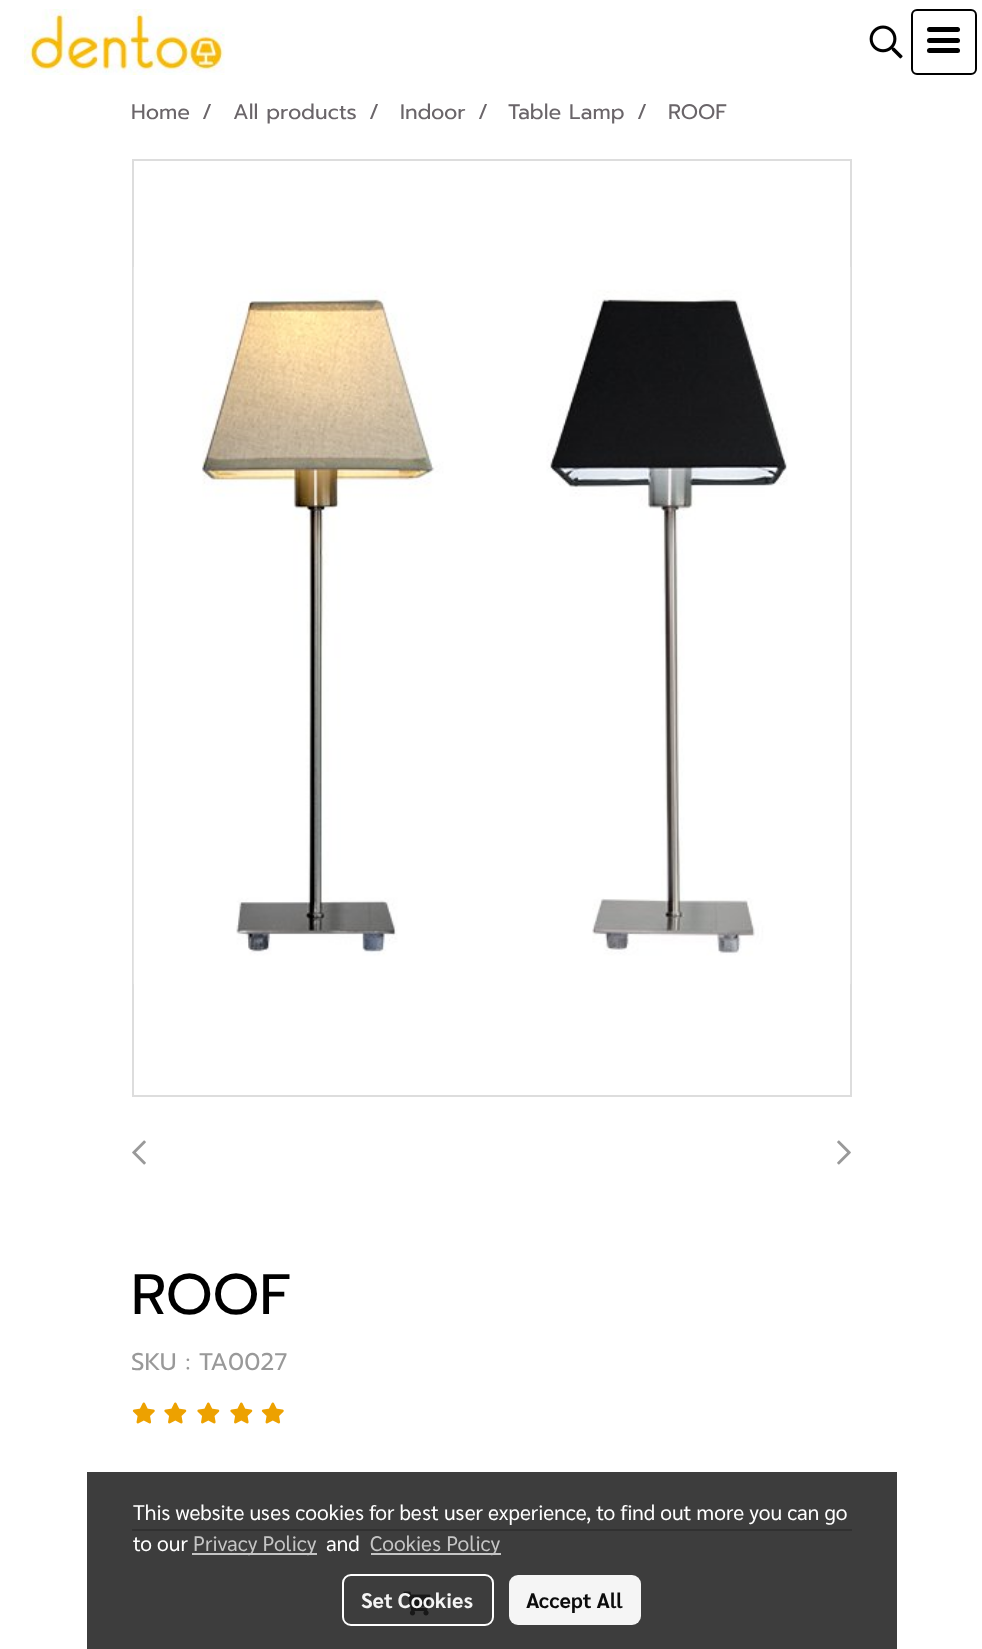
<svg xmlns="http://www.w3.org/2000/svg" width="982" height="1649">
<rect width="100%" height="100%" fill="#fff"/>
<image x="24" y="9" width="201" height="66" href="media/1.png"/>
<image x="869" y="25" width="34" height="34" href="media/2.png"/>
<rect x="912" y="10" width="64" height="64" rx="5" fill="none" stroke="#000" stroke-width="2"/>
<rect x="927" y="38" width="33" height="5" rx="2.5" fill="#000"/>
<rect x="927" y="27" width="33" height="5" rx="2.5" fill="#000"/>
<rect x="927" y="48" width="33" height="5" rx="2.5" fill="#000"/>
<text x="131" y="119" style="font-family:Prompt;font-size:21px;fill:#6a6569">Home</text>
<text x="202" y="119" style="font-family:Prompt;font-size:21px;fill:#6a6569">/</text>
<text x="233" y="119" style="font-family:Prompt;font-size:21px;fill:#6a6569">All products</text>
<text x="369" y="119" style="font-family:Prompt;font-size:21px;fill:#6a6569">/</text>
<text x="400" y="119" style="font-family:Prompt;font-size:21px;fill:#6a6569">Indoor</text>
<text x="478" y="119" style="font-family:Prompt;font-size:21px;fill:#6a6569">/</text>
<text x="508" y="119" style="font-family:Prompt;font-size:21px;fill:#6a6569">Table Lamp</text>
<text x="637" y="119" style="font-family:Prompt;font-size:21px;fill:#6a6569">/</text>
<text x="668" y="119" style="font-family:Prompt;font-size:21px;fill:#6a6569">ROOF</text>
<rect x="133" y="160" width="718" height="936" fill="none" stroke="#ddd" stroke-width="2"/>
<image x="133" y="267" width="718" height="717" href="media/3.png"/>
<image x="132" y="1140" width="14" height="25" href="media/4.png"/>
<image x="837" y="1140" width="14" height="25" href="media/5.png"/>
<text x="131" y="1314" style="font-family:Prompt;font-size:57px;fill:#000">ROOF</text>
<text x="131" y="1370" style="font-family:Prompt;font-size:24px;fill:#999">SKU : TA0027</text>
<image x="132" y="1402" width="23" height="22" href="media/6.png"/>
<image x="164" y="1402" width="23" height="22" href="media/7.png"/>
<image x="197" y="1402" width="23" height="22" href="media/7.png"/>
<image x="230" y="1402" width="23" height="22" href="media/7.png"/>
<image x="261" y="1402" width="23" height="22" href="media/6.png"/>
<rect x="132" y="1529" width="720" height="2" fill="#ccc"/>
<image x="403" y="1591" width="28" height="25" href="media/8.png"/>
<rect x="87" y="1472" width="810" height="177" fill="#000000c2"/>
<text x="133" y="1520" style="font-family:Sarabun;font-size:21px;fill:#fff">This website uses cookies for best user experience, to find out more you can go</text>
<text x="133" y="1551" style="font-family:Sarabun;font-size:21px;fill:#fff">to our</text>
<rect x="192" y="1553" width="125" height="2" fill="#c5c5c5"/>
<text x="193" y="1551" style="font-family:Sarabun;font-size:21px;fill:#c5c5c5">Privacy Policy</text>
<text x="326" y="1551" style="font-family:Sarabun;font-size:21px;fill:#fff">and</text>
<rect x="371" y="1553" width="130" height="2" fill="#c5c5c5"/>
<text x="370" y="1551" style="font-family:Sarabun;font-size:21px;fill:#c5c5c5">Cookies Policy</text>
<rect x="343" y="1575" width="150" height="50" rx="8" fill="none" stroke="#fff" stroke-width="2"/>
<text x="361" y="1608" style="font-family:Sarabun;font-size:21px;font-weight:bold;fill:#f5f5f5">Set Cookies</text>
<rect x="509" y="1575" width="132" height="50" rx="9" fill="#fffffff2"/>
<text x="526" y="1608" style="font-family:Sarabun;font-size:21px;font-weight:bold;fill:#0c0c0c">Accept All</text>
</svg>
